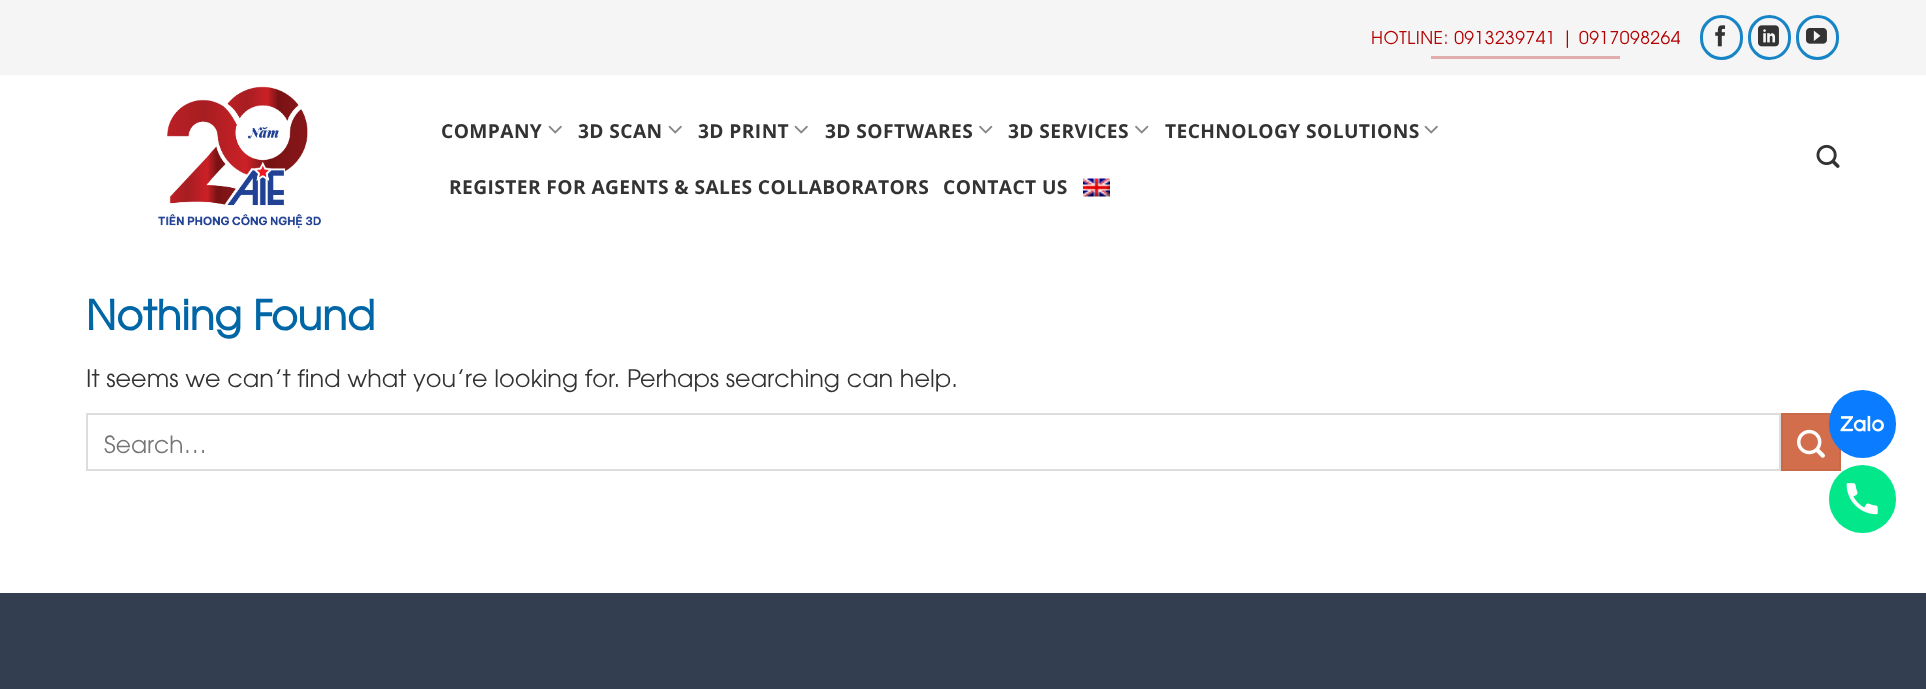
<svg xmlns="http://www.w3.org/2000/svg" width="1926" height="689">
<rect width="100%" height="100%" fill="#fff"/>
<rect width="1926" height="75" fill="#f5f5f5"/>
<text x="1371" y="44" style="font-family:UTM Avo;font-size:17.5px;letter-spacing:0.5px;fill:#b20000">HOTLINE: 0913239741 | 0917098264</text>
<rect x="1431" y="56" width="189" height="3" fill="#e1acac"/>
<rect x="1701.5" y="16.5" width="40" height="42" rx="20" fill="none" stroke="#1684c6" stroke-width="3"/>
<image x="1715" y="25" width="10" height="22" href="media/1.png"/>
<rect x="1749.5" y="16.5" width="40" height="42" rx="20" fill="none" stroke="#1684c6" stroke-width="3"/>
<image x="1758" y="25" width="21" height="22" href="media/2.png"/>
<rect x="1797.5" y="16.5" width="40" height="42" rx="20" fill="none" stroke="#1684c6" stroke-width="3"/>
<image x="1806" y="28" width="21" height="16" href="media/3.png"/>
<image x="158" y="86" width="163" height="143" href="media/4.png"/>
<text x="441" y="138" style="font-family:Open Sans;font-size:19.2px;font-weight:bold;letter-spacing:0.4px;fill:#333">COMPANY</text>
<image x="548" y="125" width="14" height="9" href="media/5.png"/>
<text x="578" y="138" style="font-family:Open Sans;font-size:19.2px;font-weight:bold;letter-spacing:0.4px;fill:#333">3D SCAN</text>
<image x="668" y="125" width="14" height="9" href="media/5.png"/>
<text x="698" y="138" style="font-family:Open Sans;font-size:19.2px;font-weight:bold;letter-spacing:0.4px;fill:#333">3D PRINT</text>
<image x="794" y="125" width="14" height="9" href="media/5.png"/>
<text x="825" y="138" style="font-family:Open Sans;font-size:19.2px;font-weight:bold;letter-spacing:0.4px;fill:#333">3D SOFTWARES</text>
<image x="979" y="125" width="14" height="9" href="media/6.png"/>
<text x="1008" y="138" style="font-family:Open Sans;font-size:19.2px;font-weight:bold;letter-spacing:0.4px;fill:#333">3D SERVICES</text>
<image x="1135" y="125" width="14" height="9" href="media/6.png"/>
<text x="1165" y="138" style="font-family:Open Sans;font-size:19.2px;font-weight:bold;letter-spacing:0.4px;fill:#333">TECHNOLOGY SOLUTIONS</text>
<image x="1424" y="125" width="14" height="9" href="media/5.png"/>
<text x="449" y="194" style="font-family:Open Sans;font-size:19.2px;font-weight:bold;letter-spacing:0.4px;fill:#333">REGISTER FOR AGENTS &amp; SALES COLLABORATORS</text>
<text x="943" y="194" style="font-family:Open Sans;font-size:19.2px;font-weight:bold;letter-spacing:0.4px;fill:#333">CONTACT US</text>
<image x="1083" y="178" width="27" height="19" href="media/7.png"/>
<image x="1816" y="144" width="24" height="24" href="media/8.png"/>
<text x="86" y="330" style="font-family:UTM Avo;font-size:40.75px;font-weight:bold;fill:#0066a5">Nothing Found</text>
<text x="86" y="387" style="font-family:UTM Avo;font-size:24px;fill:#333">It seems we can’t find what you’re looking for. Perhaps searching can help.</text>
<rect x="87" y="414" width="1693" height="56" fill="none" stroke="#ddd" stroke-width="2"/>
<text x="104" y="453" style="font-family:UTM Avo;font-size:23.5px;fill:#757575">Search…</text>
<rect x="1782" y="414" width="58" height="56" fill="#d26e4b" stroke="#c86947" stroke-width="2"/>
<image x="1797" y="429" width="28" height="29" href="media/9.png"/>
<rect y="593" width="1926" height="96" fill="#333f50"/>
<rect x="1829" y="390" width="67" height="68" rx="33.5" fill="#0a7cff"/>
<image x="1840" y="415" width="44" height="17" href="media/10.png"/>
<rect x="1829" y="465" width="67" height="68" rx="33.5" fill="#03e78b"/>
<image x="1846" y="483" width="32" height="32" href="media/11.png"/>
</svg>
